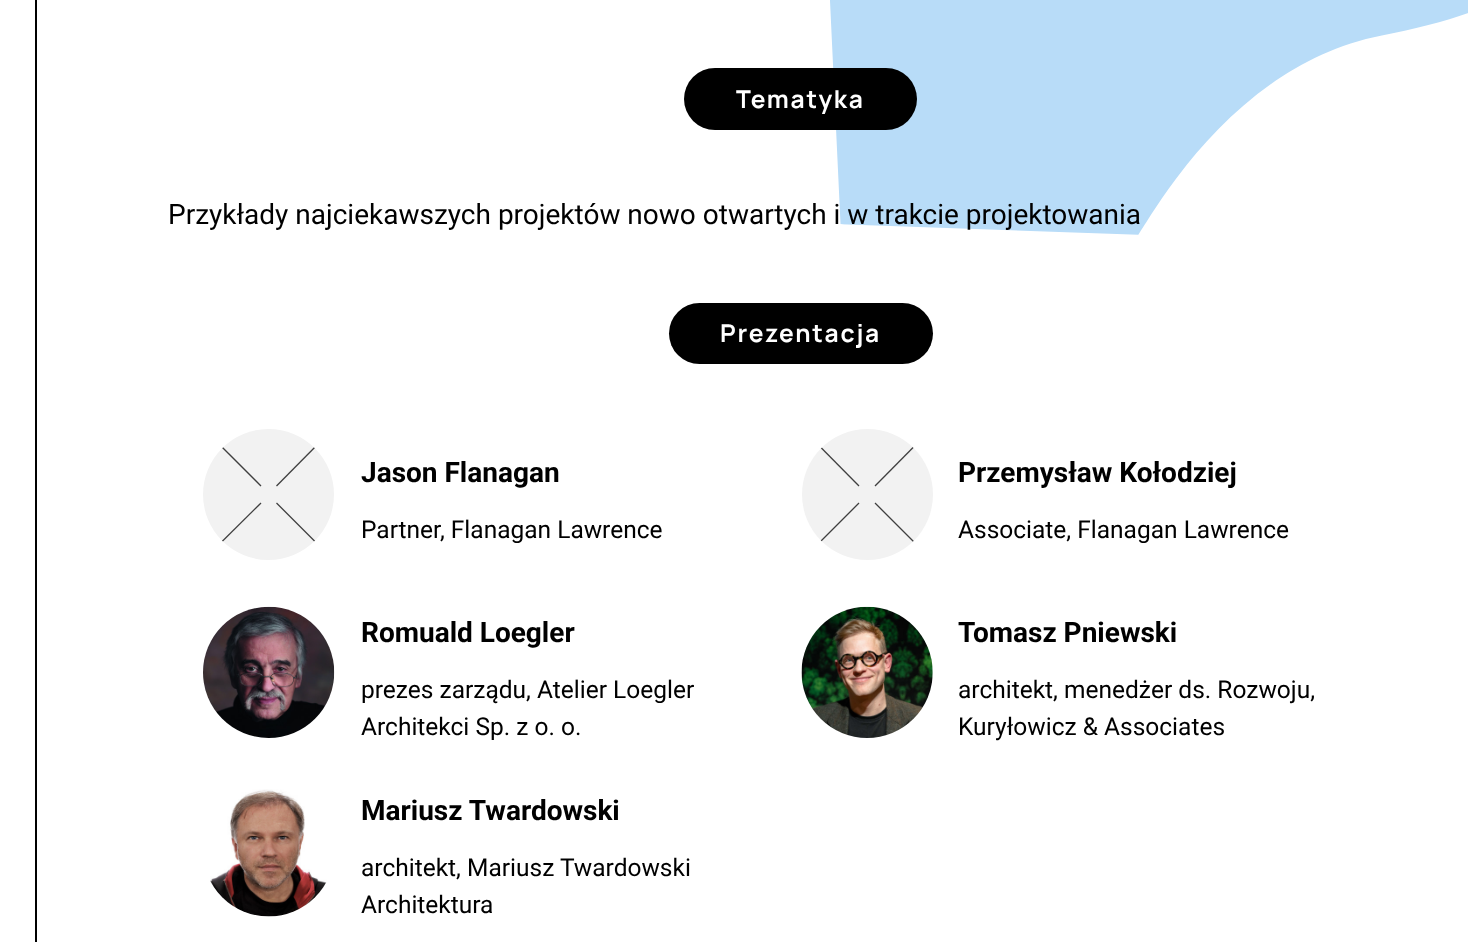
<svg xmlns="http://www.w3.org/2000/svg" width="1468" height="942">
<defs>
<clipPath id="clip1"><rect x="203" y="429" width="131" height="131" rx="65.5"/></clipPath>
<clipPath id="clip2"><rect x="802" y="429" width="131" height="131" rx="65.5"/></clipPath>
</defs>
<rect width="100%" height="100%" fill="#fff"/>
<image x="830" y="0" width="638" height="235" href="media/1.png"/>
<rect x="35" width="2" height="942" fill="#000"/>
<rect x="684" y="68" width="233" height="62" rx="31" fill="#000"/>
<text x="736" y="108" style="font-family:Manrope;font-size:24.5px;font-weight:bold;letter-spacing:1.75px;fill:#fff">Tematyka</text>
<text x="168" y="224" style="font-family:Roboto;font-size:28px;fill:#000">Przykłady najciekawszych projektów nowo otwartych i w trakcie projektowania</text>
<rect x="669" y="303" width="264" height="61" rx="30.5" fill="#000"/>
<text x="720" y="342" style="font-family:Manrope;font-size:24.5px;font-weight:bold;letter-spacing:1.75px;fill:#fff">Prezentacja</text>
<circle cx="268.5" cy="494.5" r="65.5" fill="#f2f2f2"/>
<g clip-path="url(#clip1)">
<path d="M213.5 438.5l47.5 47.5" fill="none" stroke="#3f3f3f" stroke-width="1.3"/>
<path d="M323.5 438.5l-47 47.5" fill="none" stroke="#3f3f3f" stroke-width="1.3"/>
<path d="M213.5 550l47.5-47" fill="none" stroke="#3f3f3f" stroke-width="1.3"/>
<path d="M323.5 550l-47-47" fill="none" stroke="#3f3f3f" stroke-width="1.3"/>
</g>
<text x="361" y="482" style="font-family:Roboto;font-size:28px;font-weight:bold;fill:#000">Jason Flanagan</text>
<text x="361" y="538" style="font-family:Roboto;font-size:24.5px;fill:#000">Partner, Flanagan Lawrence</text>
<circle cx="867.5" cy="494.5" r="65.5" fill="#f2f2f2"/>
<g clip-path="url(#clip2)">
<path d="M812 438.5l47 47.5" fill="none" stroke="#3f3f3f" stroke-width="1.3"/>
<path d="M922 438.5l-47 47.5" fill="none" stroke="#3f3f3f" stroke-width="1.3"/>
<path d="M812 550l47-47" fill="none" stroke="#3f3f3f" stroke-width="1.3"/>
<path d="M922 550l-47-47" fill="none" stroke="#3f3f3f" stroke-width="1.3"/>
</g>
<text x="958" y="482" style="font-family:Roboto;font-size:28px;font-weight:bold;fill:#000">Przemysław Kołodziej</text>
<text x="958" y="538" style="font-family:Roboto;font-size:24.5px;fill:#000">Associate, Flanagan Lawrence</text>
<image x="203" y="606" width="132" height="132" href="media/2.png"/>
<text x="361" y="642" style="font-family:Roboto;font-size:28px;font-weight:bold;fill:#000">Romuald Loegler</text>
<text x="361" y="698" style="font-family:Roboto;font-size:24.5px;fill:#000">prezes zarządu, Atelier Loegler</text>
<text x="361" y="735" style="font-family:Roboto;font-size:24.5px;fill:#000">Architekci Sp. z o. o.</text>
<image x="801" y="606" width="132" height="132" href="media/3.png"/>
<text x="958" y="642" style="font-family:Roboto;font-size:28px;font-weight:bold;fill:#000">Tomasz Pniewski</text>
<text x="958" y="698" style="font-family:Roboto;font-size:24.5px;fill:#000">architekt, menedżer ds. Rozwoju,</text>
<text x="958" y="735" style="font-family:Roboto;font-size:24.5px;fill:#000">Kuryłowicz &amp; Associates</text>
<image x="210" y="789" width="117" height="128" href="media/4.png"/>
<text x="361" y="820" style="font-family:Roboto;font-size:28px;font-weight:bold;fill:#000">Mariusz Twardowski</text>
<text x="361" y="876" style="font-family:Roboto;font-size:24.5px;fill:#000">architekt, Mariusz Twardowski</text>
<text x="361" y="913" style="font-family:Roboto;font-size:24.5px;fill:#000">Architektura</text>
</svg>
